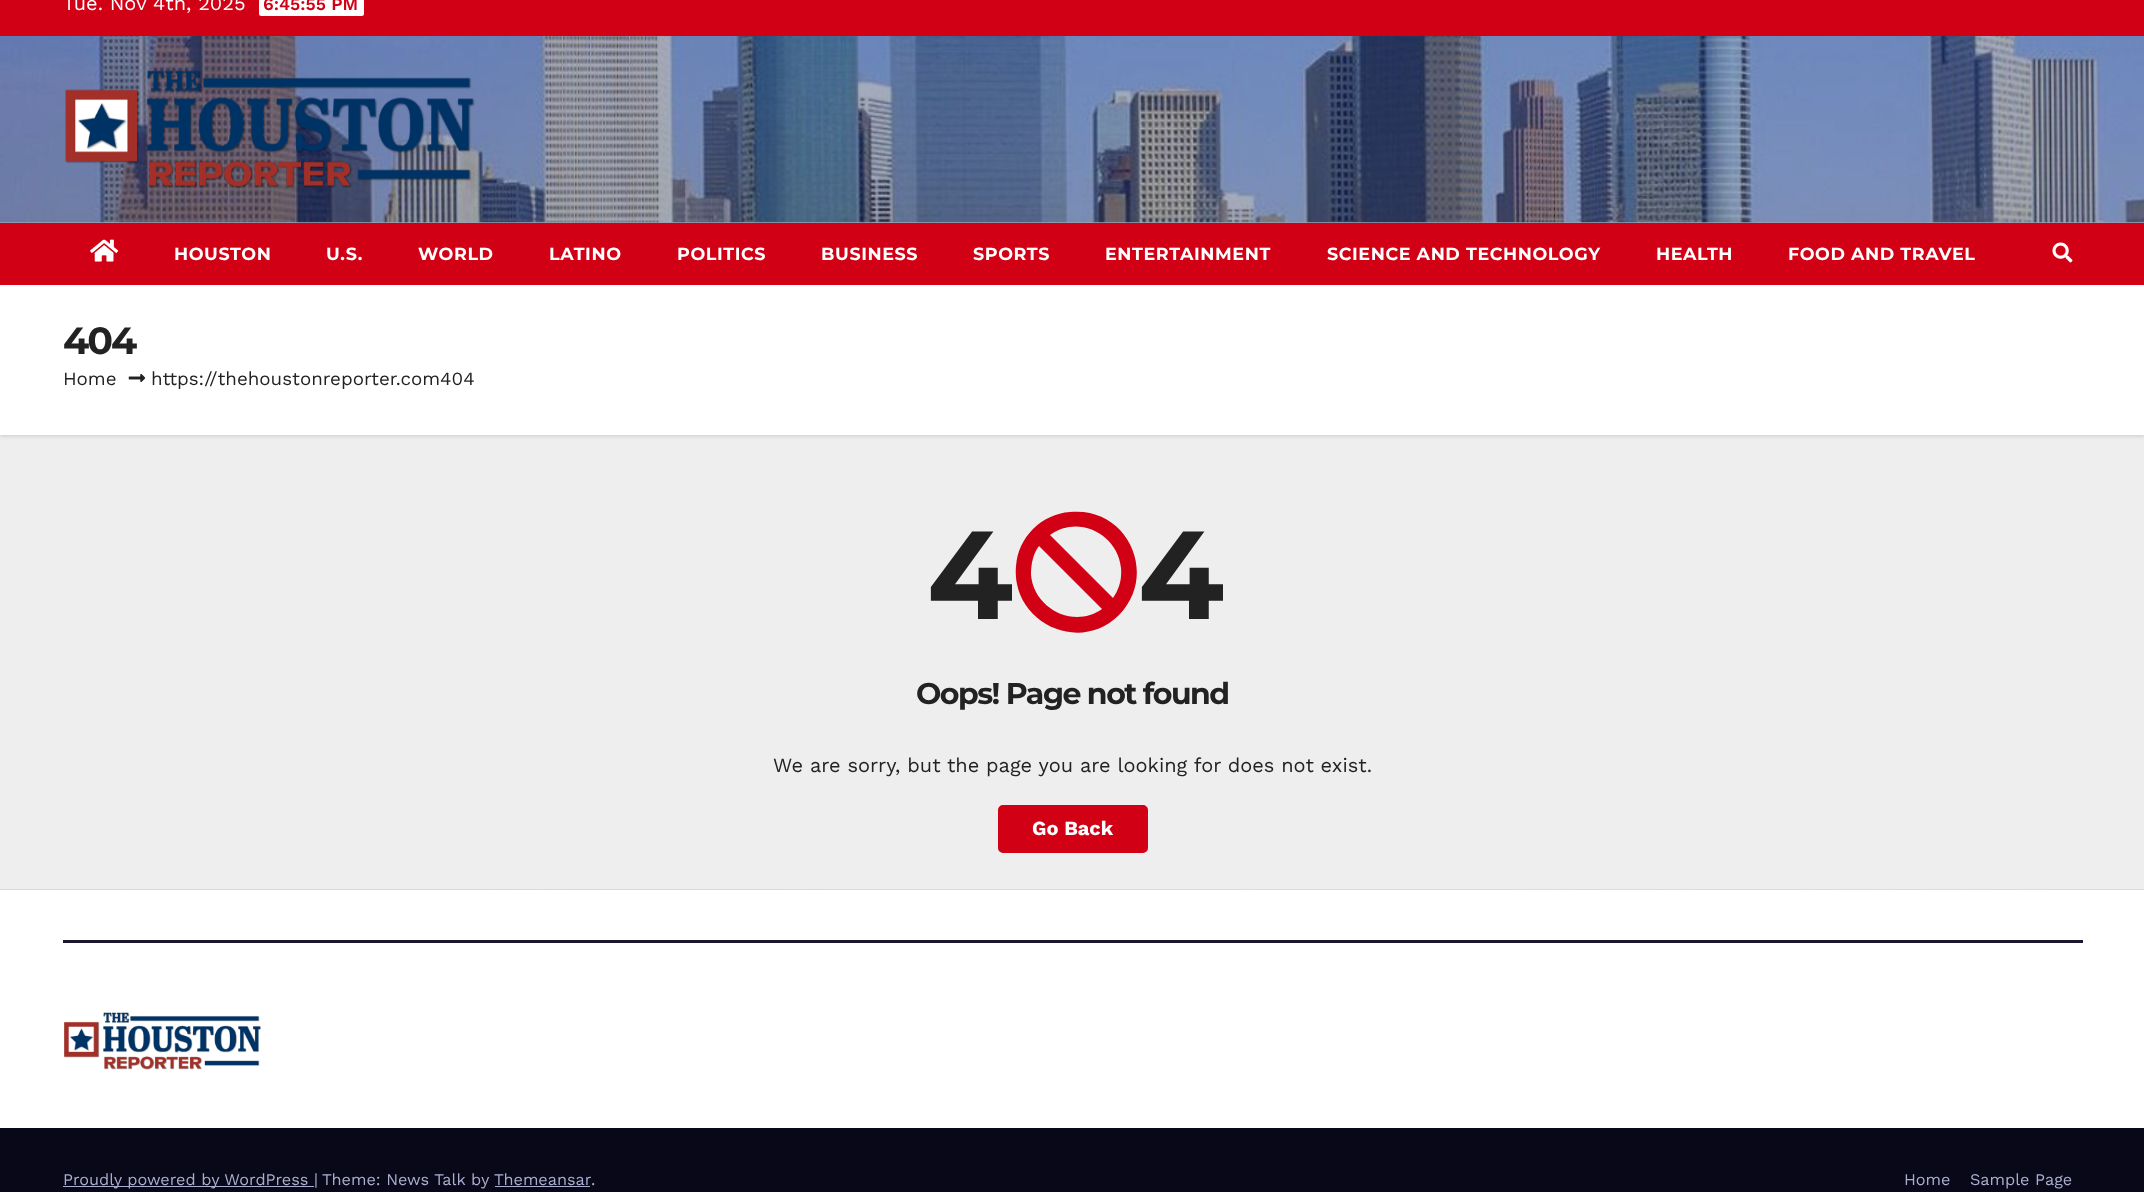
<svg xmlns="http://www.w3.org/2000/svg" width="2144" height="1192">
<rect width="100%" height="100%" fill="#eee"/>
<rect y="222" width="2144" height="1" fill="#9ca2b3"/>
<rect width="2144" height="36" fill="#d10014"/>
<text x="63" y="10" style="font-family:Work Sans;font-size:20px;fill:#fff">Tue. Nov 4th, 2025</text>
<rect x="259" y="-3" width="105" height="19" rx="2.5" fill="#fff"/>
<text x="263" y="10" style="font-family:Work Sans;font-size:17.5px;font-weight:600;fill:#d10014">6:45:55 PM</text>
<image x="0" y="36" width="2144" height="187" href="media/1.png"/>
<image x="65" y="70" width="410" height="119" href="media/2.png"/>
<rect y="286" width="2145" height="150" fill="#00000026" filter="blur(2px)"/>
<rect y="223" width="2144" height="62" fill="#d10014"/>
<image x="90" y="239" width="29" height="23" href="media/3.png"/>
<text x="174" y="260" style="font-family:Montserrat;font-size:17.5px;font-weight:bold;letter-spacing:0.6px;fill:#fff">HOUSTON</text>
<text x="326" y="260" style="font-family:Montserrat;font-size:17.5px;font-weight:bold;letter-spacing:0.6px;fill:#fff">U.S.</text>
<text x="418" y="260" style="font-family:Montserrat;font-size:17.5px;font-weight:bold;letter-spacing:0.6px;fill:#fff">WORLD</text>
<text x="549" y="260" style="font-family:Montserrat;font-size:17.5px;font-weight:bold;letter-spacing:0.6px;fill:#fff">LATINO</text>
<text x="677" y="260" style="font-family:Montserrat;font-size:17.5px;font-weight:bold;letter-spacing:0.6px;fill:#fff">POLITICS</text>
<text x="821" y="260" style="font-family:Montserrat;font-size:17.5px;font-weight:bold;letter-spacing:0.6px;fill:#fff">BUSINESS</text>
<text x="973" y="260" style="font-family:Montserrat;font-size:17.5px;font-weight:bold;letter-spacing:0.6px;fill:#fff">SPORTS</text>
<text x="1105" y="260" style="font-family:Montserrat;font-size:17.5px;font-weight:bold;letter-spacing:0.6px;fill:#fff">ENTERTAINMENT</text>
<text x="1327" y="260" style="font-family:Montserrat;font-size:17.5px;font-weight:bold;letter-spacing:0.6px;fill:#fff">SCIENCE AND TECHNOLOGY</text>
<text x="1656" y="260" style="font-family:Montserrat;font-size:17.5px;font-weight:bold;letter-spacing:0.6px;fill:#fff">HEALTH</text>
<text x="1788" y="260" style="font-family:Montserrat;font-size:17.5px;font-weight:bold;letter-spacing:0.6px;fill:#fff">FOOD AND TRAVEL</text>
<image x="2052" y="242" width="21" height="21" href="media/4.png"/>
<rect y="285" width="2144" height="150" fill="#fff"/>
<text x="63" y="354" style="font-family:Montserrat;font-size:38px;font-weight:bold;letter-spacing:-2px;fill:#222">404</text>
<text x="63" y="385" style="font-family:Work Sans;font-size:18.75px;fill:#222">Home</text>
<image x="128" y="374" width="18" height="8" href="media/5.png"/>
<text x="151" y="385" style="font-family:Work Sans;font-size:18.75px;fill:#222">https://thehoustonreporter.com404</text>
<text x="927" y="619" style="font-family:Montserrat;font-size:125px;font-weight:bold;letter-spacing:-6px;fill:#222">4</text>
<path d="M1033 529c10-10 23-16 37-17c57-6 89 62 49 103c-40 40-108 7-103-49c1-14 7-27 17-37zm88 39c-3-34-43-54-71-33l63 63c6-9 9-18 8-30zm-90 7c3 34 43 54 71 34l-63-63c-6 8-8 18-8 29z" fill="#d10014"/>
<text x="1138" y="619" style="font-family:Montserrat;font-size:125px;font-weight:bold;letter-spacing:-6px;fill:#222">4</text>
<text x="916" y="704" style="font-family:Montserrat;font-size:30px;font-weight:bold;letter-spacing:-1.5px;fill:#222">Oops! Page not found</text>
<text x="773" y="772" style="font-family:Work Sans;font-size:20px;fill:#222">We are sorry, but the page you are looking for does not exist.</text>
<rect x="999.5" y="806.5" width="147" height="45" rx="3.5" fill="#d10014" stroke="#d10014" stroke-width="3"/>
<text x="1032" y="835" style="font-family:Work Sans;font-size:20px;font-weight:bold;fill:#fff">Go Back</text>
<image x="0" y="889" width="2144" height="1" href="media/6.png"/>
<rect y="890" width="2144" height="238" fill="#fff"/>
<rect x="63" y="940" width="2020" height="3" fill="#1a182e"/>
<image x="64" y="1012" width="197" height="58" href="media/7.png"/>
<rect y="1128" width="2144" height="64" fill="#090818"/>
<rect x="63" y="1186" width="251" height="1" fill="#aaaed1"/>
<text x="63" y="1185" style="font-family:Work Sans;font-size:16.25px;fill:#aaaed1">Proudly powered by WordPress |</text>
<text x="322" y="1185" style="font-family:Work Sans;font-size:16.25px;fill:#aaaed1">Theme: News Talk by Themeansar</text>
<text x="591" y="1185" style="font-family:Work Sans;font-size:16.25px;fill:#aaaed1">.</text>
<rect x="495" y="1186" width="95" height="1" fill="#aaaed1"/>
<text x="1904" y="1185" style="font-family:Work Sans;font-size:16.25px;fill:#aaaed1">Home</text>
<text x="1970" y="1185" style="font-family:Work Sans;font-size:16.25px;fill:#aaaed1">Sample Page</text>
</svg>
